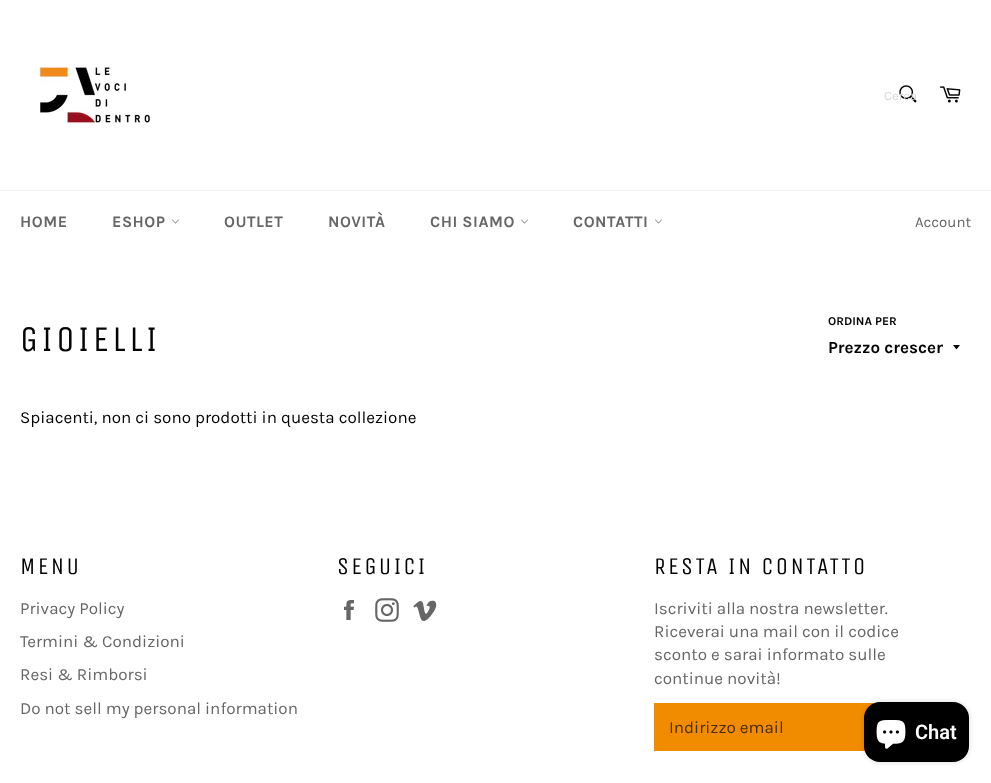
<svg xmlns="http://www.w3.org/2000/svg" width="991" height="783">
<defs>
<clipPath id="clip1"><rect x="884" y="88" width="32" height="15"/></clipPath>
<clipPath id="clip2"><rect x="828" y="336" width="115" height="24"/></clipPath>
</defs>
<rect width="100%" height="100%" fill="#fff"/>
<image x="38" y="64" width="114" height="60" href="media/1.png"/>
<image x="899" y="85" width="18" height="18" href="media/2.png"/>
<g clip-path="url(#clip1)">
<text x="884" y="100" style="font-family:Karla;font-size:13px;fill:#d8d8d8">Cerca</text>
</g>
<image x="939" y="86" width="22" height="17" href="media/3.png"/>
<rect y="190" width="991" height="1" fill="#f2f2f2"/>
<text x="20" y="227" style="font-family:Karla;font-size:16px;font-weight:bold;letter-spacing:0.5px;fill:#666">HOME</text>
<text x="112" y="227" style="font-family:Karla;font-size:16px;font-weight:bold;letter-spacing:0.5px;fill:#666">ESHOP</text>
<image x="172" y="219" width="7" height="5" href="media/4.png"/>
<text x="224" y="227" style="font-family:Karla;font-size:16px;font-weight:bold;letter-spacing:0.5px;fill:#666">OUTLET</text>
<text x="328" y="227" style="font-family:Karla;font-size:16px;font-weight:bold;letter-spacing:0.5px;fill:#666">NOVITÀ</text>
<text x="430" y="227" style="font-family:Karla;font-size:16px;font-weight:bold;letter-spacing:0.5px;fill:#666">CHI SIAMO</text>
<image x="521" y="219" width="7" height="5" href="media/4.png"/>
<text x="573" y="227" style="font-family:Karla;font-size:16px;font-weight:bold;letter-spacing:0.5px;fill:#666">CONTATTI</text>
<image x="655" y="219" width="7" height="5" href="media/4.png"/>
<text x="915" y="227" style="font-family:Karla;font-size:15px;fill:#666">Account</text>
<text x="20" y="351" style="font-family:Unica One;font-size:36px;letter-spacing:3.5px;fill:#030303">GIOIELLI</text>
<text x="828" y="325" style="font-family:Karla;font-size:12px;font-weight:bold;fill:#030303">ORDINA PER</text>
<path d="M953 345c4.5 5.5 2.5 5.5 7 0z" fill="#030303"/>
<g clip-path="url(#clip2)">
<text x="828" y="353" style="font-family:Karla;font-size:17px;font-weight:bold;fill:#030303">Prezzo crescen</text>
</g>
<text x="20" y="423" style="font-family:Karla;font-size:17px;fill:#030303">Spiacenti, non ci sono prodotti in questa collezione</text>
<text x="20" y="574" style="font-family:Unica One;font-size:24px;letter-spacing:2.4px;fill:#030303">MENU</text>
<text x="20" y="614" style="font-family:Karla;font-size:17px;fill:#666">Privacy Policy</text>
<text x="20" y="647" style="font-family:Karla;font-size:17px;fill:#666">Termini &amp; Condizioni</text>
<text x="20" y="680" style="font-family:Karla;font-size:17px;fill:#666">Resi &amp; Rimborsi</text>
<text x="20" y="714" style="font-family:Karla;font-size:17px;fill:#666">Do not sell my personal information</text>
<text x="337" y="574" style="font-family:Unica One;font-size:24px;letter-spacing:2.4px;fill:#030303">SEGUICI</text>
<image x="344" y="600" width="10" height="20" href="media/5.png"/>
<image x="375" y="598" width="24" height="24" href="media/6.png"/>
<image x="413" y="600" width="24" height="21" href="media/7.png"/>
<text x="654" y="574" style="font-family:Unica One;font-size:24px;letter-spacing:2.4px;fill:#030303">RESTA IN CONTATTO</text>
<text x="654" y="614" style="font-family:Karla;font-size:17px;fill:#666">Iscriviti alla nostra newsletter.</text>
<text x="654" y="637" style="font-family:Karla;font-size:17px;fill:#666">Riceverai una mail con il codice</text>
<text x="654" y="660" style="font-family:Karla;font-size:17px;fill:#666">sconto e sarai informato sulle</text>
<text x="654" y="684" style="font-family:Karla;font-size:17px;fill:#666">continue novità!</text>
<rect x="654" y="703" width="221" height="48" fill="#f18c00"/>
<text x="669" y="733" style="font-family:Karla;font-size:17px;fill:#4a2c02">Indirizzo email</text>
<rect x="864" y="702" width="105" height="60" rx="16" fill="#00000026" filter="blur(2.5px)"/>
<rect x="864" y="702" width="105" height="60" rx="16" fill="#000"/>
<image x="876" y="720" width="30" height="29" href="media/8.png"/>
<text x="915" y="739" style="font-family:Roboto;font-size:20px;font-weight:600;fill:#fff">Chat</text>
</svg>
